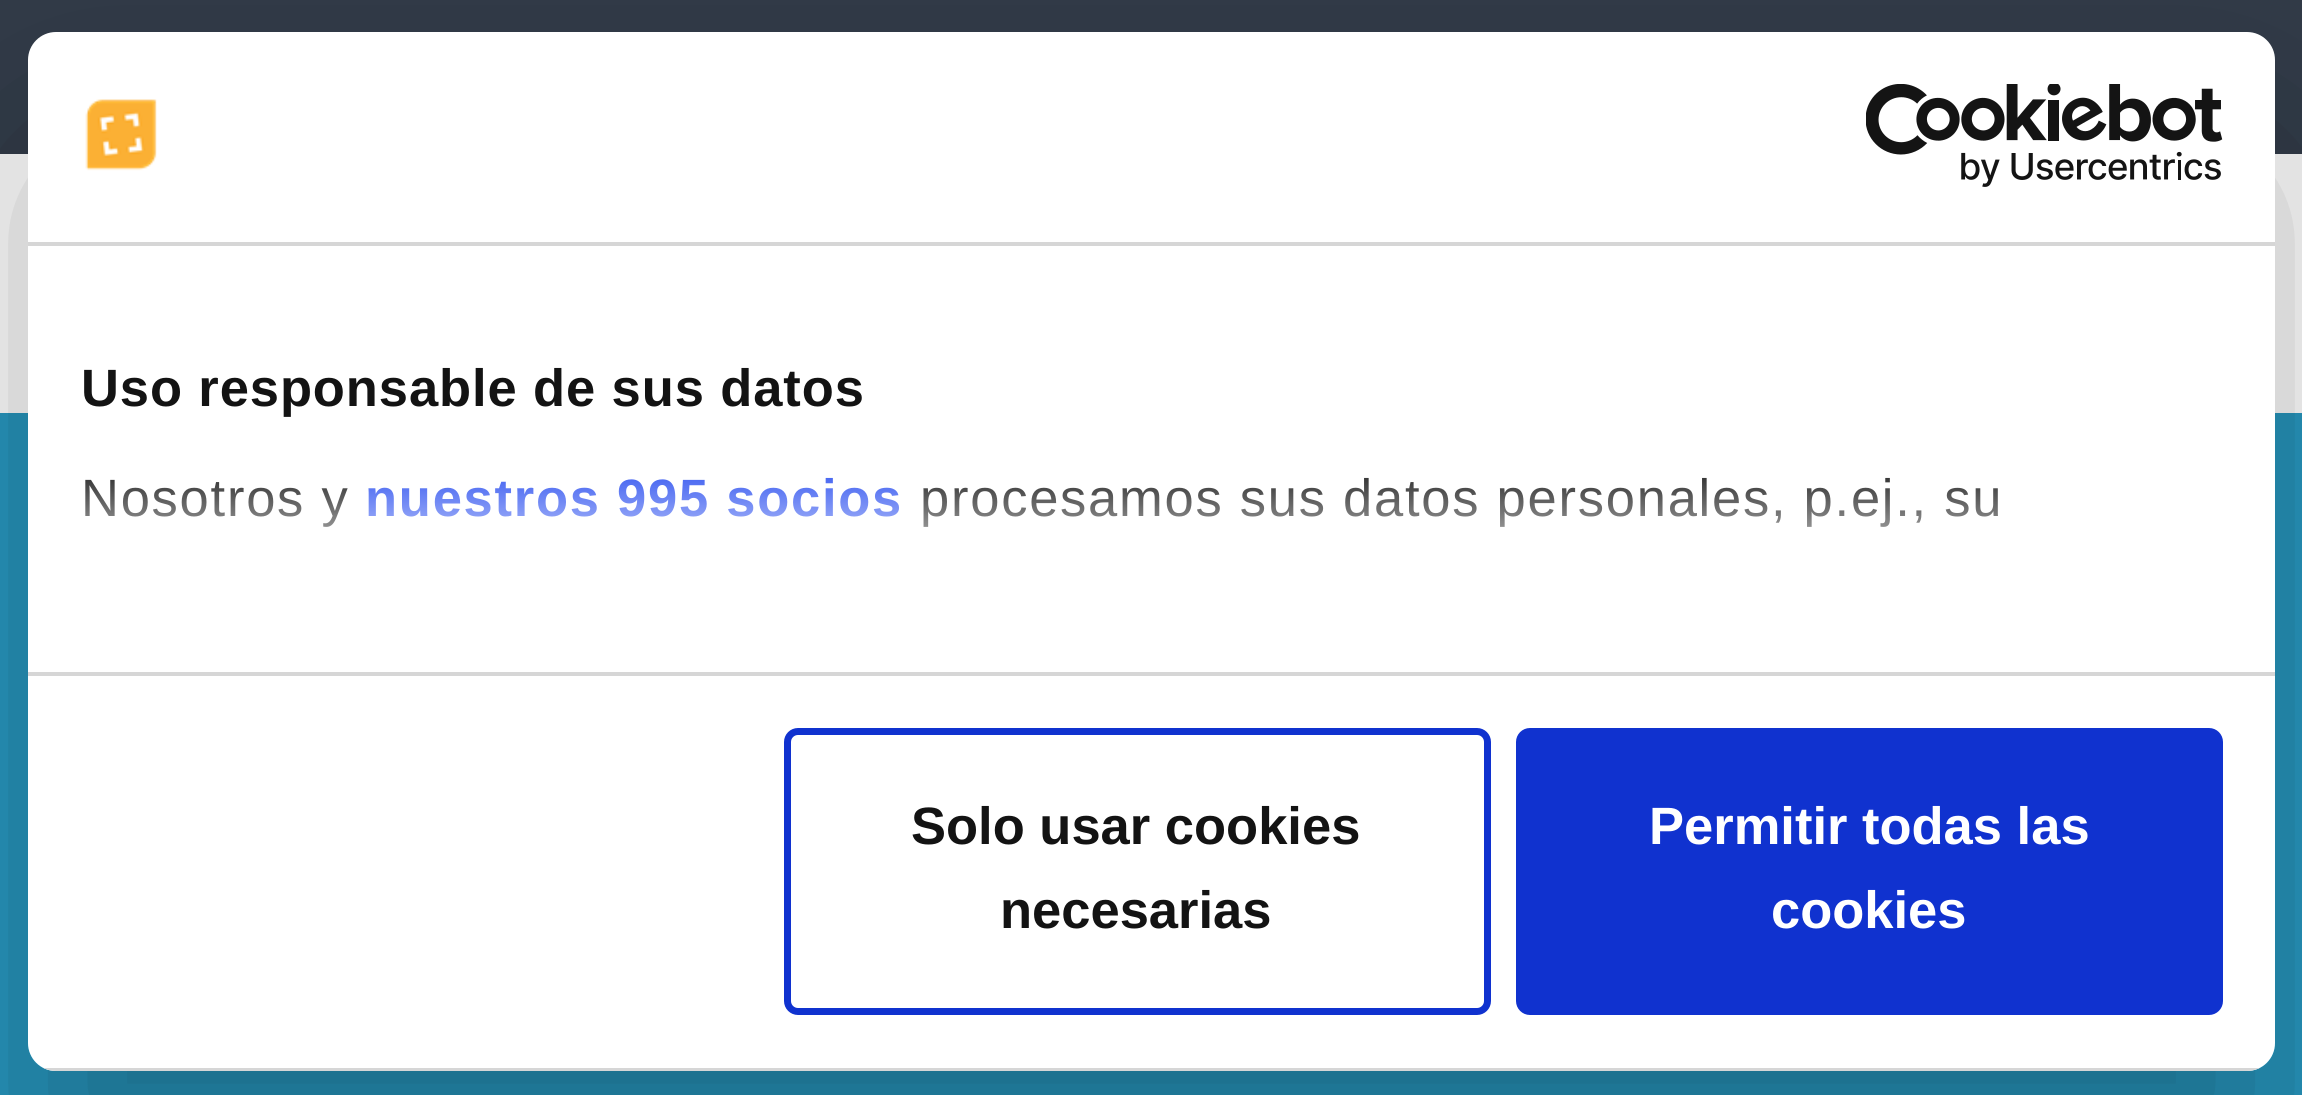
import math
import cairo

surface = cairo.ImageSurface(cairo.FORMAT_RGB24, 2302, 1095)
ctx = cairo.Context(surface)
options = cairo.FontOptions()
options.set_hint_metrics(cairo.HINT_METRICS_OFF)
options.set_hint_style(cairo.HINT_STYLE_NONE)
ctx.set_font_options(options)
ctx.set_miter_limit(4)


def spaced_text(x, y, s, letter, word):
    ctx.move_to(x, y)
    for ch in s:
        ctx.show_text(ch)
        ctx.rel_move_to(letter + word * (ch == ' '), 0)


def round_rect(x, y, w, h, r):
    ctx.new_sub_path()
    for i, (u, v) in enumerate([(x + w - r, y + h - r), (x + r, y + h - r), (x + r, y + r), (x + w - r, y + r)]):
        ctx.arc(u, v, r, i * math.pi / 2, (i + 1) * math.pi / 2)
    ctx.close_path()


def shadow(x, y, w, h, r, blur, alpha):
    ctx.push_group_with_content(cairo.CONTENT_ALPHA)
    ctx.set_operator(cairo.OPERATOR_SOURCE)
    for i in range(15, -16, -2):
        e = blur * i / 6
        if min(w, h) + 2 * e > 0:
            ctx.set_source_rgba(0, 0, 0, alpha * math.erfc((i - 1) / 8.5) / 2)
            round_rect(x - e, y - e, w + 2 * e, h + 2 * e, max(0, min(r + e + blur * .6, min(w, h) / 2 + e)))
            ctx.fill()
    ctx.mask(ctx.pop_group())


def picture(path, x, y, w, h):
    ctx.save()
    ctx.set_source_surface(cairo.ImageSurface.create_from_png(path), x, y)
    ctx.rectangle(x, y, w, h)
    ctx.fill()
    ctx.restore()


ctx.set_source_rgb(1, 1, 1)
ctx.paint()
ctx.set_source_rgb(0.196, 0.235, 0.286)
ctx.rectangle(0, 0, 2302, 154)
ctx.fill()
ctx.set_source_rgb(0.153, 0.596, 0.753)
ctx.rectangle(0, 413, 2302, 682)
ctx.fill()
ctx.save()
ctx.set_fill_rule(cairo.FILL_RULE_EVEN_ODD)
ctx.new_path()
ctx.move_to(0, 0)
ctx.line_to(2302, 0)
ctx.line_to(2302, 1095)
ctx.line_to(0, 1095)
ctx.close_path()
ctx.move_to(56, 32)
ctx.line_to(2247, 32)
ctx.curve_to(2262.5, 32, 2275, 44.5, 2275, 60)
ctx.line_to(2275, 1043)
ctx.curve_to(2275, 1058.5, 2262.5, 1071, 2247, 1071)
ctx.line_to(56, 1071)
ctx.curve_to(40.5, 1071, 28, 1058.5, 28, 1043)
ctx.line_to(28, 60)
ctx.curve_to(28, 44.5, 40.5, 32, 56, 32)
ctx.close_path()
ctx.clip()
ctx.set_source_rgb(0, 0, 0)
shadow(28, 144, 2247, 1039, 28, 119, 0.3)
ctx.restore()
ctx.set_source_rgb(1, 1, 1)
round_rect(28, 32, 2247, 1039, 28)
ctx.fill()
ctx.set_source_rgb(0.839, 0.839, 0.839)
ctx.rectangle(28, 242, 2247, 4)
ctx.fill()
picture("img1.png", 85, 99, 72, 72)
picture("img2.png", 1866, 84, 357, 103)
ctx.rectangle(28, 672, 2247, 4)
ctx.fill()
ctx.select_font_face("Liberation Sans", cairo.FONT_SLANT_NORMAL, cairo.FONT_WEIGHT_BOLD)
ctx.set_font_size(52.5)
ctx.set_source_rgb(0.078, 0.078, 0.078)
spaced_text(81, 406, "Uso responsable de sus datos", 0.9, 0)
ctx.select_font_face("Liberation Sans")
spaced_text(81, 516, "Nosotros y", 1.75, 0)
ctx.select_font_face("Liberation Sans", cairo.FONT_SLANT_NORMAL, cairo.FONT_WEIGHT_BOLD)
ctx.set_source_rgb(0.165, 0.306, 0.937)
spaced_text(365, 516, "nuestros 995 socios", 1.75, 0)
ctx.select_font_face("Liberation Sans")
ctx.set_source_rgb(0.078, 0.078, 0.078)
spaced_text(920, 516, "procesamos sus datos personales, p.ej., su", 1.75, 0)
gradient = cairo.LinearGradient(1129, 670, 1129, 457)
gradient.add_color_stop_rgba(0, 1, 1, 1, 1)
gradient.add_color_stop_rgba(0.5, 1, 1, 1, 0.8)
gradient.add_color_stop_rgba(1, 1, 1, 1, 0)
ctx.set_source(gradient)
ctx.rectangle(84, 478, 1914, 49)
ctx.fill()
ctx.save()
round_rect(28, 32, 2247, 1039, 28)
ctx.clip()
ctx.set_source_rgb(0.839, 0.839, 0.839)
ctx.rectangle(43, 1068, 2217, 3)
ctx.fill()
ctx.restore()
round_rect(787.5, 731.5, 700, 280, 10.5)
ctx.set_source_rgb(0.063, 0.196, 0.812)
ctx.set_line_width(7)
ctx.stroke()
ctx.select_font_face("Liberation Sans", cairo.FONT_SLANT_NORMAL, cairo.FONT_WEIGHT_BOLD)
ctx.set_source_rgb(0.078, 0.078, 0.078)
ctx.move_to(911, 844)
ctx.show_text("Solo usar cookies")
ctx.move_to(1000, 928)
ctx.show_text("necesarias")
ctx.set_source_rgb(0.063, 0.196, 0.812)
round_rect(1519.5, 731.5, 700, 280, 10.5)
ctx.fill_preserve()
ctx.stroke()
ctx.set_source_rgb(1, 1, 1)
ctx.move_to(1649, 844)
ctx.show_text("Permitir todas las")
ctx.move_to(1771, 928)
ctx.show_text("cookies")
surface.write_to_png("page.png")
